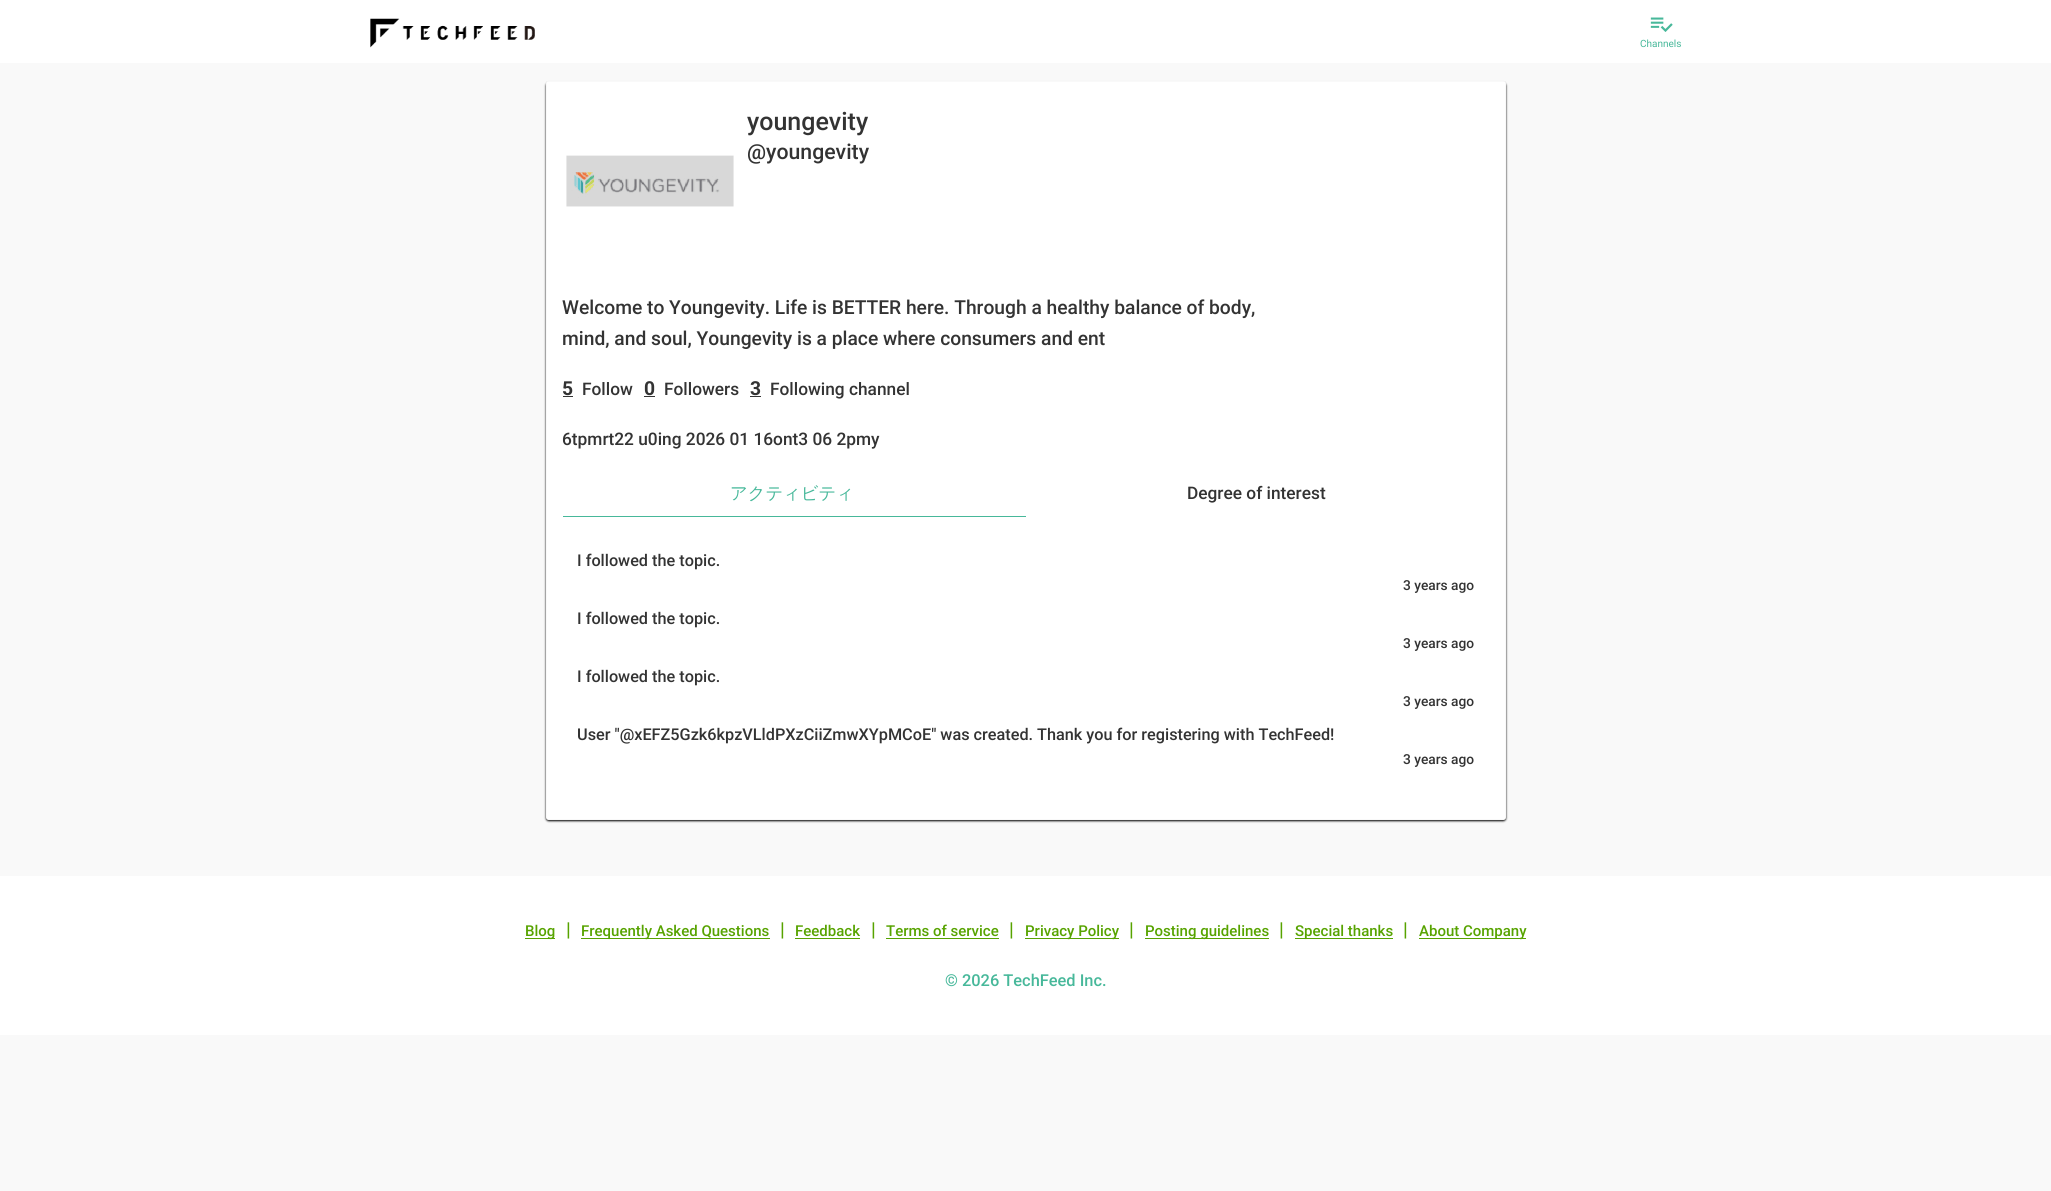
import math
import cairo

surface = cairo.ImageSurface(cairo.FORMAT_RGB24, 2051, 1191)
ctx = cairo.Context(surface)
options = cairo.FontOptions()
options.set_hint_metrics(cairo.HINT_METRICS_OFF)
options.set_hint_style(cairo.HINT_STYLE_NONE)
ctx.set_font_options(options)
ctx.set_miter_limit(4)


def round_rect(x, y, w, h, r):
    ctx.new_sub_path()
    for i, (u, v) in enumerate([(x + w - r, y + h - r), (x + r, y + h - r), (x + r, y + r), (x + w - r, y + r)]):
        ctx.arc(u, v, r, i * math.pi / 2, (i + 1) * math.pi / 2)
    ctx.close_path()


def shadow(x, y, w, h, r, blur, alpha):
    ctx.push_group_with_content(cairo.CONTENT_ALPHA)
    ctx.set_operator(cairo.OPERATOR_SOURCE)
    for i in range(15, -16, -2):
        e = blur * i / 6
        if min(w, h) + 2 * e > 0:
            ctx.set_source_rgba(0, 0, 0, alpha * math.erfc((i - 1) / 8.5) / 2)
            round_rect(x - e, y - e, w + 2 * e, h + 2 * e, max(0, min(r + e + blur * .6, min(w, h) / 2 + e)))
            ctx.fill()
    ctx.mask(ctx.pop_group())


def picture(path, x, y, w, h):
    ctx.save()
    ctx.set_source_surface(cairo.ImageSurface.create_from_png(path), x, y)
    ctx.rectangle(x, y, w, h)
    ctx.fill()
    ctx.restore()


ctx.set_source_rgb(0.973, 0.973, 0.973)
ctx.paint()
ctx.set_source_rgb(1, 1, 1)
ctx.rectangle(0, 0, 2051, 63)
ctx.fill()
picture("img1.png", 370, 18, 165, 30)
picture("img2.png", 1650, 17, 23, 15)
ctx.select_font_face("Roboto")
ctx.set_font_size(10)
ctx.set_source_rgb(0.278, 0.722, 0.604)
ctx.move_to(1640, 47)
ctx.show_text("Channels")
ctx.set_source_rgb(0, 0, 0)
shadow(546, 83, 960, 738, 2.5, 1, 1)
ctx.set_source_rgb(1, 1, 1)
round_rect(546, 81, 960, 739, 2.5)
ctx.fill()
ctx.rectangle(546.5, 81.5, 959, 738)
ctx.set_source_rgba(0.392, 0.392, 0.392, 0.04)
ctx.set_line_width(1)
ctx.stroke()
ctx.select_font_face("Roboto Medium")
ctx.set_font_size(25)
ctx.set_source_rgb(0.2, 0.2, 0.2)
ctx.move_to(747, 130)
ctx.show_text("youngevity")
ctx.set_font_size(21.25)
ctx.move_to(747, 159)
ctx.show_text("@youngevity")
picture("img3.png", 566, 155, 168, 52)
ctx.set_font_size(19.25)
ctx.move_to(562, 314)
ctx.show_text("Welcome to Youngevity. Life is BETTER here. Through a healthy balance of body,")
ctx.move_to(562, 345)
ctx.show_text("mind, and soul, Youngevity is a place where consumers and ent")
ctx.select_font_face("Roboto", cairo.FONT_SLANT_NORMAL, cairo.FONT_WEIGHT_BOLD)
ctx.move_to(562, 395)
ctx.show_text("5")
ctx.rectangle(563, 396, 10, 1)
ctx.fill()
ctx.select_font_face("Roboto Medium")
ctx.set_font_size(17.3)
ctx.move_to(582, 395)
ctx.show_text("Follow")
ctx.select_font_face("Roboto", cairo.FONT_SLANT_NORMAL, cairo.FONT_WEIGHT_BOLD)
ctx.set_font_size(19.25)
ctx.move_to(644, 395)
ctx.show_text("0")
ctx.rectangle(644, 396, 11, 1)
ctx.fill()
ctx.select_font_face("Roboto Medium")
ctx.set_font_size(17.3)
ctx.move_to(664, 395)
ctx.show_text("Followers")
ctx.select_font_face("Roboto", cairo.FONT_SLANT_NORMAL, cairo.FONT_WEIGHT_BOLD)
ctx.set_font_size(19.25)
ctx.move_to(750, 395)
ctx.show_text("3")
ctx.rectangle(750, 396, 11, 1)
ctx.fill()
ctx.select_font_face("Roboto Medium")
ctx.set_font_size(17.3)
ctx.move_to(770, 395)
ctx.show_text("Following channel")
ctx.move_to(562, 445)
ctx.show_text("6tpmrt22 u0ing 2026 01 16ont3 06 2pmy")
ctx.set_source_rgb(0.278, 0.722, 0.604)
ctx.rectangle(563, 516, 463, 1)
ctx.fill()
ctx.select_font_face("WenQuanYi Zen Hei Medium")
ctx.move_to(730, 499)
ctx.show_text("アクティビティ")
ctx.select_font_face("Roboto Medium")
ctx.set_source_rgb(0.2, 0.2, 0.2)
ctx.move_to(1187, 499)
ctx.show_text("Degree of interest")
ctx.set_font_size(16.25)
ctx.move_to(577, 566)
ctx.show_text("I followed the topic.")
ctx.set_font_size(13.75)
ctx.move_to(1403, 590)
ctx.show_text("3 years ago")
ctx.set_font_size(16.25)
ctx.move_to(577, 624)
ctx.show_text("I followed the topic.")
ctx.set_font_size(13.75)
ctx.move_to(1403, 648)
ctx.show_text("3 years ago")
ctx.set_font_size(16.25)
ctx.move_to(577, 682)
ctx.show_text("I followed the topic.")
ctx.set_font_size(13.75)
ctx.move_to(1403, 706)
ctx.show_text("3 years ago")
ctx.set_font_size(16.25)
ctx.move_to(577, 740)
ctx.show_text("User \"@xEFZ5Gzk6kpzVLldPXzCiiZmwXYpMCoE\" was created. Thank you for registering with TechFeed!")
ctx.set_font_size(13.75)
ctx.move_to(1403, 764)
ctx.show_text("3 years ago")
ctx.set_source_rgb(1, 1, 1)
ctx.rectangle(0, 876, 2051, 159)
ctx.fill()
ctx.set_source_rgb(0.341, 0.639, 0)
ctx.rectangle(525, 938, 30, 1)
ctx.fill()
ctx.set_font_size(15)
ctx.move_to(525, 936)
ctx.show_text("Blog")
ctx.set_font_size(19.25)
ctx.move_to(566, 936)
ctx.show_text("|")
ctx.rectangle(581, 938, 189, 1)
ctx.fill()
ctx.set_font_size(15)
ctx.move_to(581, 936)
ctx.show_text("Frequently Asked Questions")
ctx.set_font_size(19.25)
ctx.move_to(780, 936)
ctx.show_text("|")
ctx.set_font_size(15)
ctx.move_to(795, 936)
ctx.show_text("Feedback")
ctx.rectangle(795, 938, 65, 1)
ctx.fill()
ctx.set_font_size(19.25)
ctx.move_to(871, 936)
ctx.show_text("|")
ctx.set_font_size(15)
ctx.move_to(886, 936)
ctx.show_text("Terms of service")
ctx.rectangle(886, 938, 113, 1)
ctx.fill()
ctx.set_font_size(19.25)
ctx.move_to(1009, 936)
ctx.show_text("|")
ctx.rectangle(1025, 938, 94, 1)
ctx.fill()
ctx.set_font_size(15)
ctx.move_to(1025, 936)
ctx.show_text("Privacy Policy")
ctx.set_font_size(19.25)
ctx.move_to(1129, 936)
ctx.show_text("|")
ctx.rectangle(1145, 938, 124, 1)
ctx.fill()
ctx.set_font_size(15)
ctx.move_to(1145, 936)
ctx.show_text("Posting guidelines")
ctx.set_font_size(19.25)
ctx.move_to(1279, 936)
ctx.show_text("|")
ctx.rectangle(1295, 938, 98, 1)
ctx.fill()
ctx.set_font_size(15)
ctx.move_to(1295, 936)
ctx.show_text("Special thanks")
ctx.set_font_size(19.25)
ctx.move_to(1403, 936)
ctx.show_text("|")
ctx.rectangle(1419, 938, 107, 1)
ctx.fill()
ctx.set_font_size(15)
ctx.move_to(1419, 936)
ctx.show_text("About Company")
ctx.set_font_size(16.4)
ctx.set_source_rgb(0.278, 0.722, 0.604)
ctx.move_to(945, 986)
ctx.show_text("© 2026 TechFeed Inc.")
surface.write_to_png("page.png")
